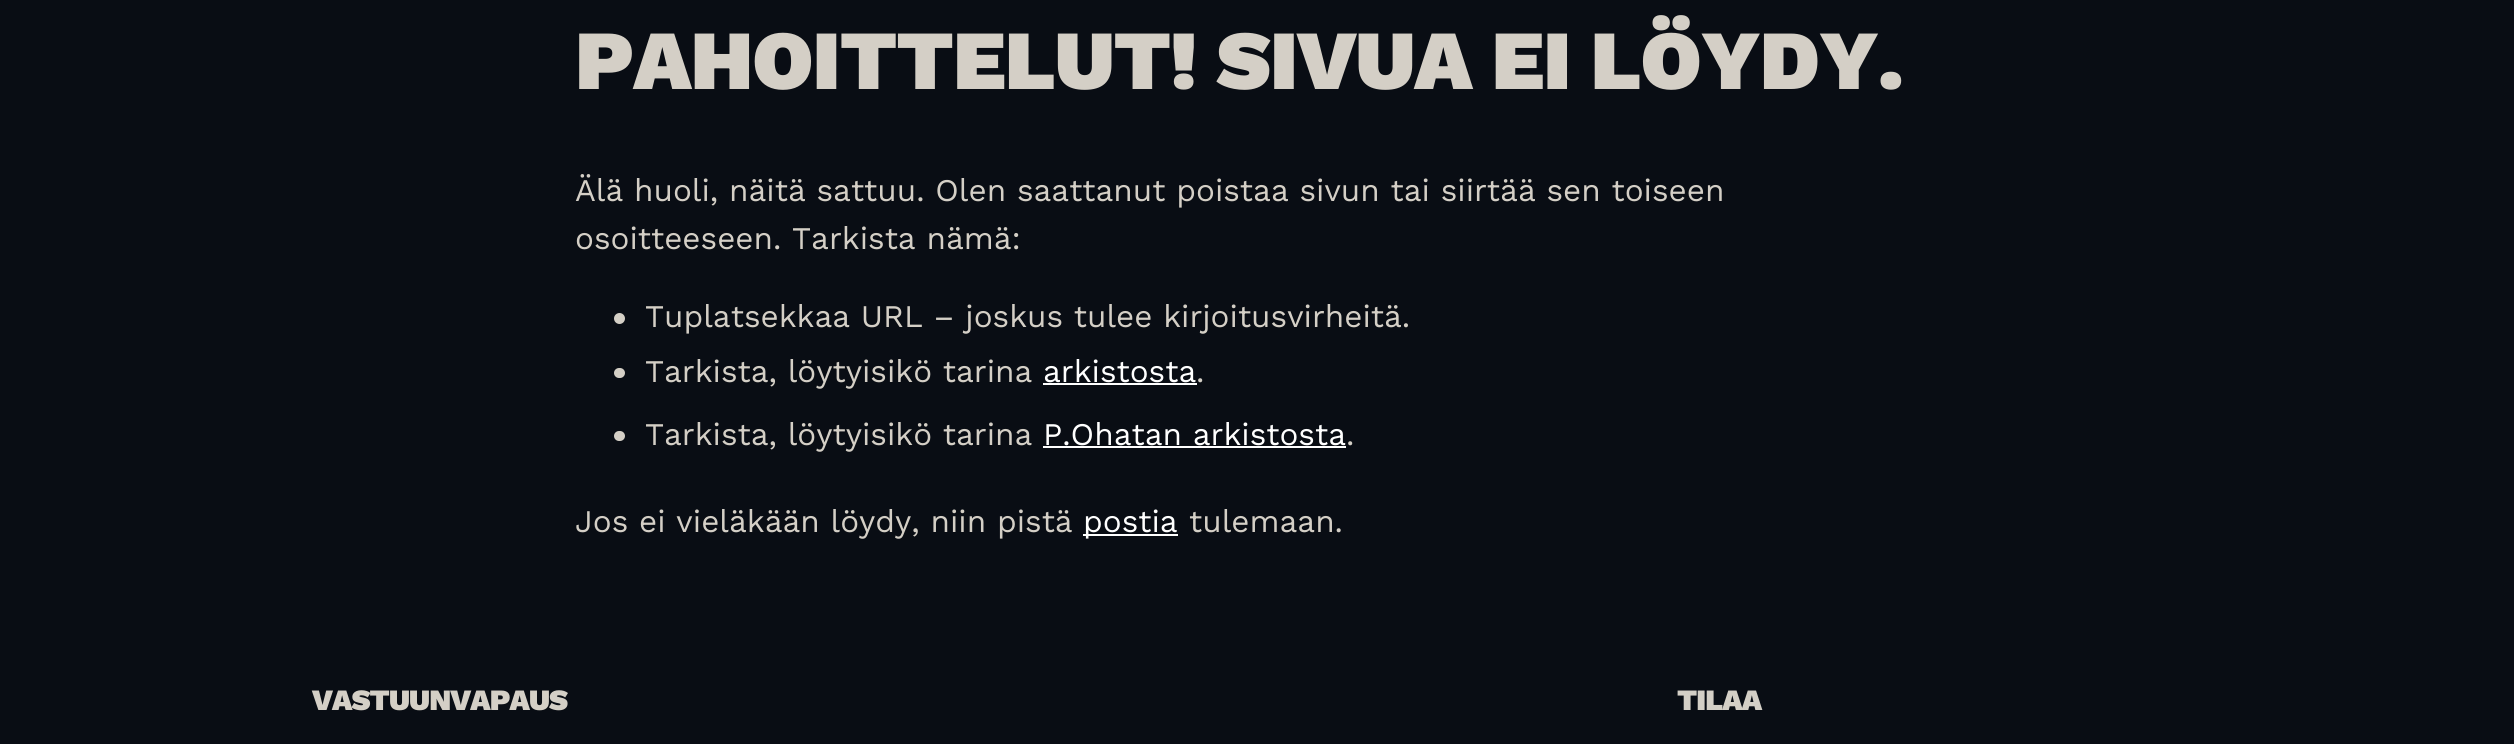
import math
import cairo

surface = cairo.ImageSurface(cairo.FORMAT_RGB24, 2514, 744)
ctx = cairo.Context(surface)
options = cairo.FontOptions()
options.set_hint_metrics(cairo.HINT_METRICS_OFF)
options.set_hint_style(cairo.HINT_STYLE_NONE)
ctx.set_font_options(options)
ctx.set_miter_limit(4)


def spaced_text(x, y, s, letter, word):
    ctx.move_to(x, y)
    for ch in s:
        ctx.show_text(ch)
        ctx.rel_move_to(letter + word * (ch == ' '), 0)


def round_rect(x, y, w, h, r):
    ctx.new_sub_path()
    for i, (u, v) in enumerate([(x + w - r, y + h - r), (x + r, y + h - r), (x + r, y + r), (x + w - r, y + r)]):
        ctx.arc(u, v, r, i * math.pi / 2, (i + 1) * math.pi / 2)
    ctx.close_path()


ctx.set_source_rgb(0.039, 0.051, 0.082)
ctx.paint()
ctx.select_font_face("Work Sans Black")
ctx.set_font_size(84)
ctx.set_source_rgb(0.831, 0.812, 0.776)
spaced_text(575, 89, "PAHOITTELUT! SIVUA EI LÖYDY.", -0.9, 0)
ctx.select_font_face("Work Sans")
ctx.set_font_size(31.5)
ctx.move_to(575, 201)
ctx.show_text("Älä huoli, näitä sattuu. Olen saattanut poistaa sivun tai siirtää sen toiseen")
ctx.move_to(575, 249)
ctx.show_text("osoitteeseen. Tarkista nämä:")
ctx.new_path()
ctx.arc(619.5, 318.5, 5.5, 0, 2 * math.pi)
ctx.fill()
ctx.move_to(645, 327)
ctx.show_text("Tuplatsekkaa URL – joskus tulee kirjoitusvirheitä.")
round_rect(614, 368, 11, 10, 5)
ctx.fill()
ctx.move_to(645, 382)
ctx.show_text("Tarkista, löytyisikö tarina")
ctx.set_source_rgb(1, 1, 1)
ctx.move_to(1043, 382)
ctx.show_text("arkistosta")
ctx.rectangle(1043, 383, 154, 2)
ctx.fill()
ctx.set_source_rgb(0.831, 0.812, 0.776)
ctx.move_to(1196, 382)
ctx.show_text(".")
round_rect(614, 431, 11, 10, 5)
ctx.fill()
ctx.move_to(645, 445)
ctx.show_text("Tarkista, löytyisikö tarina")
ctx.set_source_rgb(1, 1, 1)
ctx.move_to(1043, 445)
ctx.show_text("P.Ohatan arkistosta")
ctx.rectangle(1043, 446, 303, 2)
ctx.fill()
ctx.set_source_rgb(0.831, 0.812, 0.776)
ctx.move_to(1346, 445)
ctx.show_text(".")
ctx.move_to(575, 532)
ctx.show_text("Jos ei vieläkään löydy, niin pistä")
ctx.set_source_rgb(1, 1, 1)
ctx.rectangle(1083, 534, 95, 2)
ctx.fill()
ctx.move_to(1083, 532)
ctx.show_text("postia")
ctx.set_source_rgb(0.831, 0.812, 0.776)
ctx.move_to(1189, 532)
ctx.show_text("tulemaan.")
ctx.select_font_face("Work Sans Black")
ctx.set_font_size(29.5)
spaced_text(312, 710, "VASTUUNVAPAUS", -0.9, 0)
spaced_text(1677, 710, "TILAA", -0.9, 0)
surface.write_to_png("page.png")
